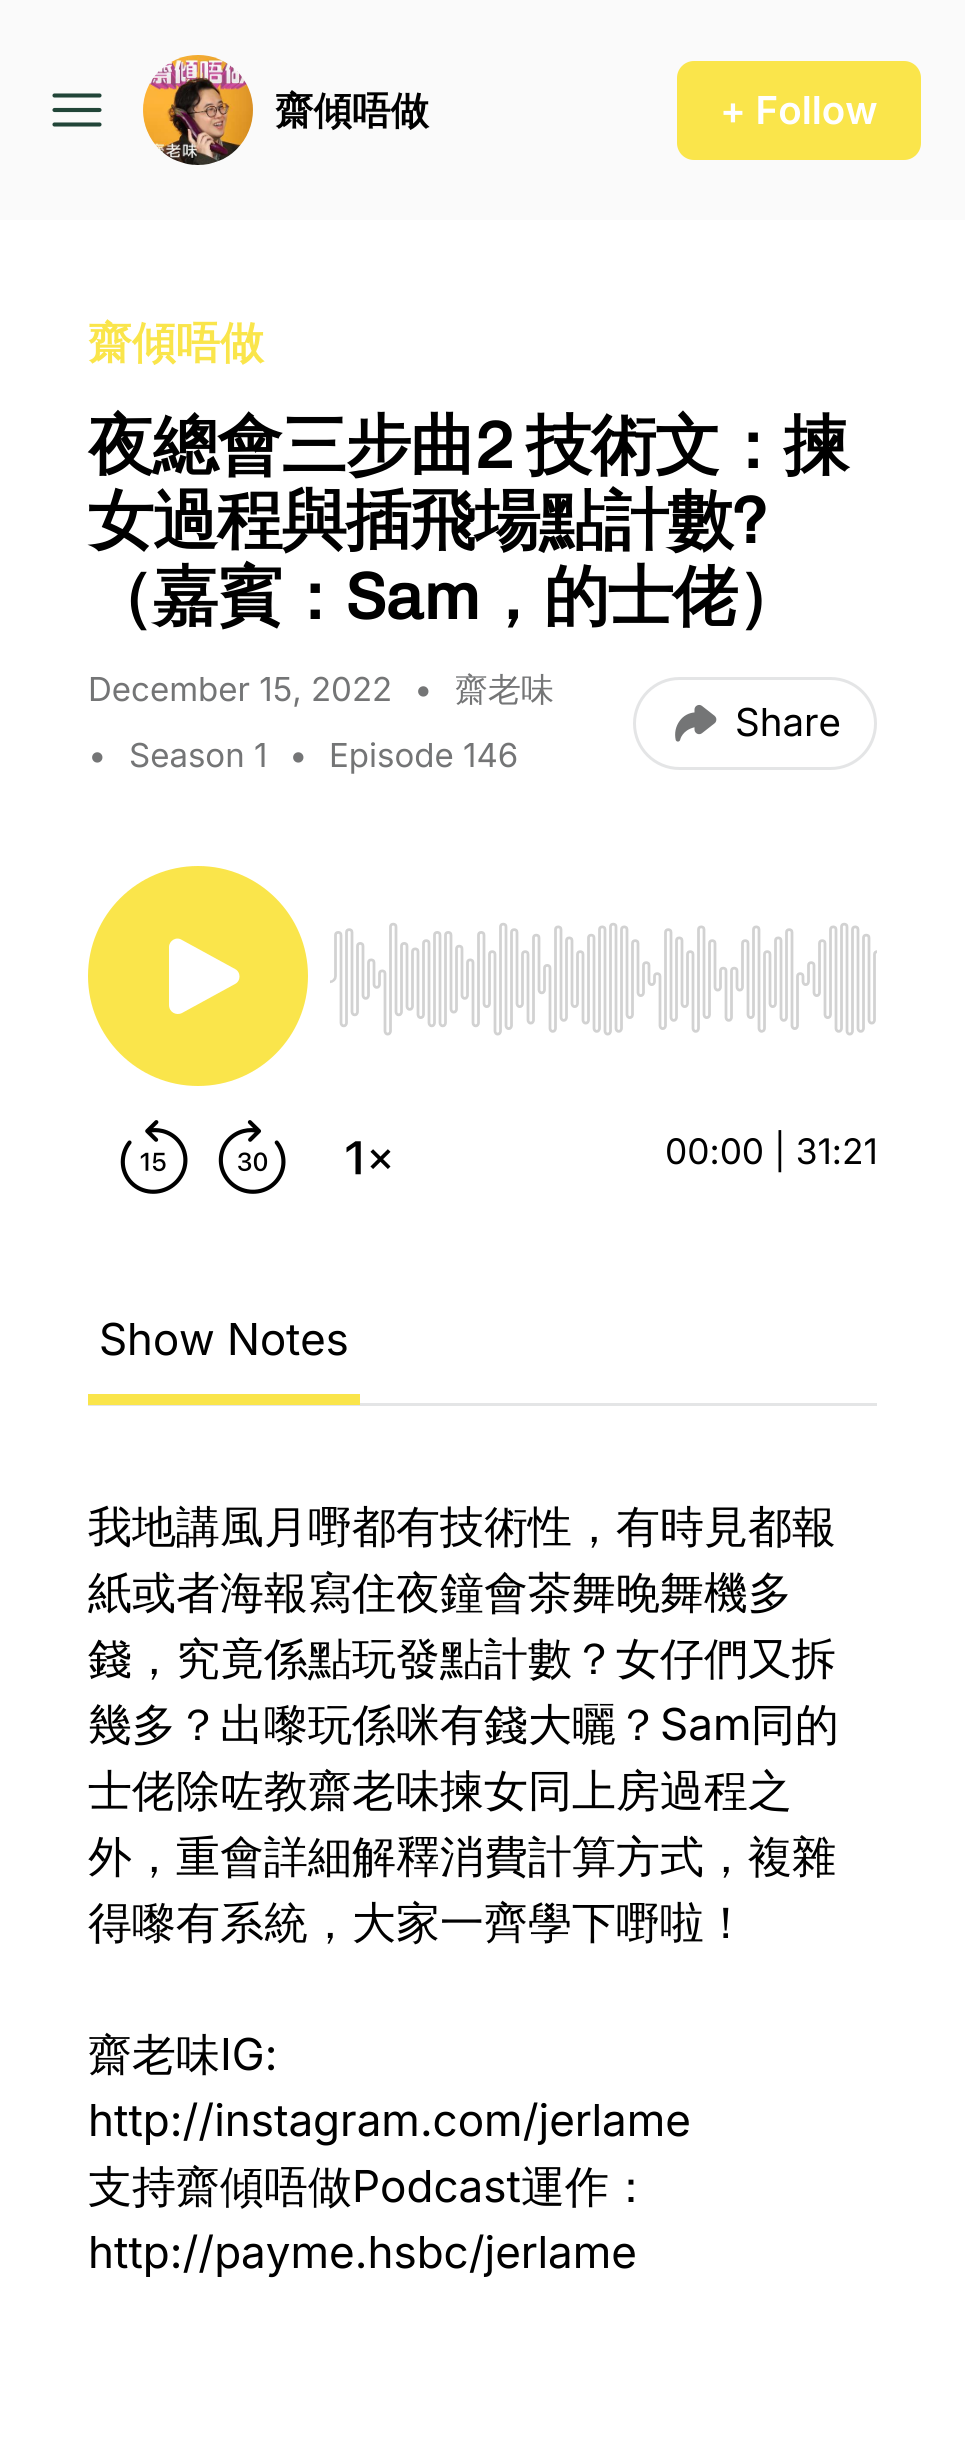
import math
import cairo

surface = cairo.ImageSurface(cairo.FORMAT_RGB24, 965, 2450)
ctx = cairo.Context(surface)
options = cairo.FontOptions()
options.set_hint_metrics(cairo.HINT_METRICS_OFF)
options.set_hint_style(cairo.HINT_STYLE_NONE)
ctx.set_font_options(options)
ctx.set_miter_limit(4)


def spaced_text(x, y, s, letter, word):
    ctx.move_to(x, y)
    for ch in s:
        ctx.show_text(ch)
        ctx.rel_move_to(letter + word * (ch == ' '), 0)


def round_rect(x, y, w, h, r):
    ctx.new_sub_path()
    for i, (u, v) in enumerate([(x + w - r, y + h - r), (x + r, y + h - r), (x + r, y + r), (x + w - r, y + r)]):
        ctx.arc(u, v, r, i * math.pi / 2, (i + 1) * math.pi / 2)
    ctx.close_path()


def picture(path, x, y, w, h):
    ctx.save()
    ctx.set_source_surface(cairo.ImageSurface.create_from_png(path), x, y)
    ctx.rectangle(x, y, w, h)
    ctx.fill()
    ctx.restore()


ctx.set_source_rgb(1, 1, 1)
ctx.paint()
ctx.set_source_rgb(0.98, 0.98, 0.98)
ctx.rectangle(0, 0, 965, 220)
ctx.fill()
ctx.new_path()
ctx.move_to(54.5, 95.5)
ctx.line_to(99.5, 95.5)
ctx.move_to(54.5, 110)
ctx.line_to(99.5, 110)
ctx.move_to(54.5, 124.5)
ctx.line_to(99.5, 124.5)
ctx.set_source_rgb(0.129, 0.271, 0.22)
ctx.set_line_width(4.1)
ctx.set_line_cap(cairo.LINE_CAP_ROUND)
ctx.set_line_join(cairo.LINE_JOIN_ROUND)
ctx.stroke()
picture("img1.png", 143, 55, 110, 110)
ctx.select_font_face("WenQuanYi Zen Hei", cairo.FONT_SLANT_NORMAL, cairo.FONT_WEIGHT_BOLD)
ctx.set_font_size(38.5)
ctx.set_source_rgb(0, 0, 0)
ctx.move_to(275, 124)
ctx.show_text("齋傾唔做")
ctx.set_source_rgb(0.98, 0.898, 0.294)
round_rect(677, 61, 244, 99, 17)
ctx.fill()
ctx.select_font_face("Inter SemiBold")
ctx.set_source_rgb(1, 1, 1)
ctx.move_to(720, 124)
ctx.show_text("+ Follow")
ctx.select_font_face("WenQuanYi Zen Hei", cairo.FONT_SLANT_NORMAL, cairo.FONT_WEIGHT_BOLD)
ctx.set_font_size(44)
ctx.set_source_rgb(0.98, 0.898, 0.294)
ctx.move_to(88, 358)
ctx.show_text("齋傾唔做")
ctx.set_font_size(66)
ctx.set_source_rgb(0, 0, 0)
spaced_text(88, 468, "夜總會三步曲", -1.6, 0)
ctx.select_font_face("Chivo", cairo.FONT_SLANT_NORMAL, cairo.FONT_WEIGHT_BOLD)
spaced_text(474, 468, "2", -1.6, 0)
ctx.select_font_face("WenQuanYi Zen Hei", cairo.FONT_SLANT_NORMAL, cairo.FONT_WEIGHT_BOLD)
spaced_text(526, 468, "技術文：揀", -1.6, 0)
spaced_text(88, 543, "女過程與插飛場點計數", -1.6, 0)
ctx.select_font_face("Chivo", cairo.FONT_SLANT_NORMAL, cairo.FONT_WEIGHT_BOLD)
spaced_text(732, 543, "?", -1.6, 0)
ctx.select_font_face("WenQuanYi Zen Hei", cairo.FONT_SLANT_NORMAL, cairo.FONT_WEIGHT_BOLD)
spaced_text(88, 619, "（嘉賓：", -1.6, 0)
ctx.select_font_face("Chivo", cairo.FONT_SLANT_NORMAL, cairo.FONT_WEIGHT_BOLD)
spaced_text(345, 619, "Sam", -1.6, 0)
ctx.select_font_face("WenQuanYi Zen Hei", cairo.FONT_SLANT_NORMAL, cairo.FONT_WEIGHT_BOLD)
spaced_text(479, 619, "，的士佬）", -1.6, 0)
ctx.select_font_face("Inter")
ctx.set_font_size(33)
ctx.set_source_rgb(0.455, 0.459, 0.463)
ctx.move_to(88, 701)
ctx.show_text("December 15, 2022")
ctx.move_to(414, 701)
ctx.show_text("•")
ctx.select_font_face("WenQuanYi Zen Hei Medium")
ctx.move_to(455, 701)
ctx.show_text("齋老味")
ctx.select_font_face("Inter")
ctx.move_to(88, 767)
ctx.show_text("•")
ctx.move_to(129, 767)
ctx.show_text("Season 1")
ctx.move_to(289, 767)
ctx.show_text("•")
ctx.move_to(329, 767)
ctx.show_text("Episode 146")
round_rect(634.5, 678.5, 241, 90, 45)
ctx.set_source_rgb(0.894, 0.898, 0.902)
ctx.set_line_width(3)
ctx.set_line_cap(cairo.LINE_CAP_BUTT)
ctx.set_line_join(cairo.LINE_JOIN_MITER)
ctx.stroke()
picture("img2.png", 675, 704, 42, 38)
ctx.set_font_size(38.5)
ctx.set_source_rgb(0, 0, 0)
ctx.move_to(735, 736)
ctx.show_text("Share")
picture("img3.png", 120, 1120, 68, 74)
picture("img4.png", 218, 1120, 68, 74)
picture("img5.png", 346, 1141, 45, 34)
ctx.set_source_rgb(0.98, 0.898, 0.294)
ctx.arc(198, 976, 110, 0, 2 * math.pi)
ctx.fill()
ctx.set_source_rgb(1, 1, 1)
ctx.set_fill_rule(cairo.FILL_RULE_EVEN_ODD)
ctx.new_path()
ctx.move_to(169, 947)
ctx.curve_to(169, 941, 176, 936, 182, 940)
ctx.line_to(235, 969)
ctx.curve_to(241, 972, 241, 981, 235, 984)
ctx.line_to(182, 1013)
ctx.curve_to(176, 1016, 169, 1012, 169, 1005)
ctx.close_path()
ctx.fill()
picture("img6.png", 330, 922, 547, 114)
ctx.set_font_size(35.25)
ctx.set_source_rgb(0, 0, 0)
ctx.move_to(665, 1164)
ctx.show_text("00:00 | 31:21")
ctx.set_source_rgb(0.894, 0.898, 0.902)
ctx.rectangle(88, 1403, 789, 3)
ctx.fill()
ctx.set_source_rgb(0.98, 0.898, 0.294)
ctx.rectangle(88, 1394, 272, 11)
ctx.fill()
ctx.select_font_face("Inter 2")
ctx.set_font_size(44)
ctx.set_source_rgb(0, 0, 0)
ctx.move_to(99, 1355)
ctx.show_text("Show Notes")
ctx.select_font_face("WenQuanYi Zen Hei Medium")
ctx.move_to(88, 1542)
ctx.show_text("我地講風月嘢都有技術性，有時見都報")
ctx.move_to(88, 1608)
ctx.show_text("紙或者海報寫住夜鐘會茶舞晚舞機多")
ctx.move_to(88, 1674)
ctx.show_text("錢，究竟係點玩發點計數？女仔們又拆")
ctx.move_to(88, 1740)
ctx.show_text("幾多？出嚟玩係咪有錢大曬？")
ctx.select_font_face("Inter")
ctx.move_to(660, 1740)
ctx.show_text("Sam")
ctx.select_font_face("WenQuanYi Zen Hei Medium")
ctx.move_to(751, 1740)
ctx.show_text("同的")
ctx.move_to(88, 1806)
ctx.show_text("士佬除咗教齋老味揀女同上房過程之")
ctx.move_to(88, 1872)
ctx.show_text("外，重會詳細解釋消費計算方式，複雜")
ctx.move_to(88, 1938)
ctx.show_text("得嚟有系統，大家一齊學下嘢啦！")
ctx.move_to(88, 2070)
ctx.show_text("齋老味")
ctx.select_font_face("Inter")
ctx.move_to(220, 2070)
ctx.show_text("IG:")
ctx.move_to(88, 2136)
ctx.show_text("http://instagram.com/jerlame")
ctx.select_font_face("WenQuanYi Zen Hei Medium")
ctx.move_to(88, 2202)
ctx.show_text("支持齋傾唔做")
ctx.select_font_face("Inter")
ctx.move_to(352, 2202)
ctx.show_text("Podcast")
ctx.select_font_face("WenQuanYi Zen Hei Medium")
ctx.move_to(521, 2202)
ctx.show_text("運作：")
ctx.select_font_face("Inter")
ctx.move_to(88, 2268)
ctx.show_text("http://payme.hsbc/jerlame")
surface.write_to_png("page.png")
